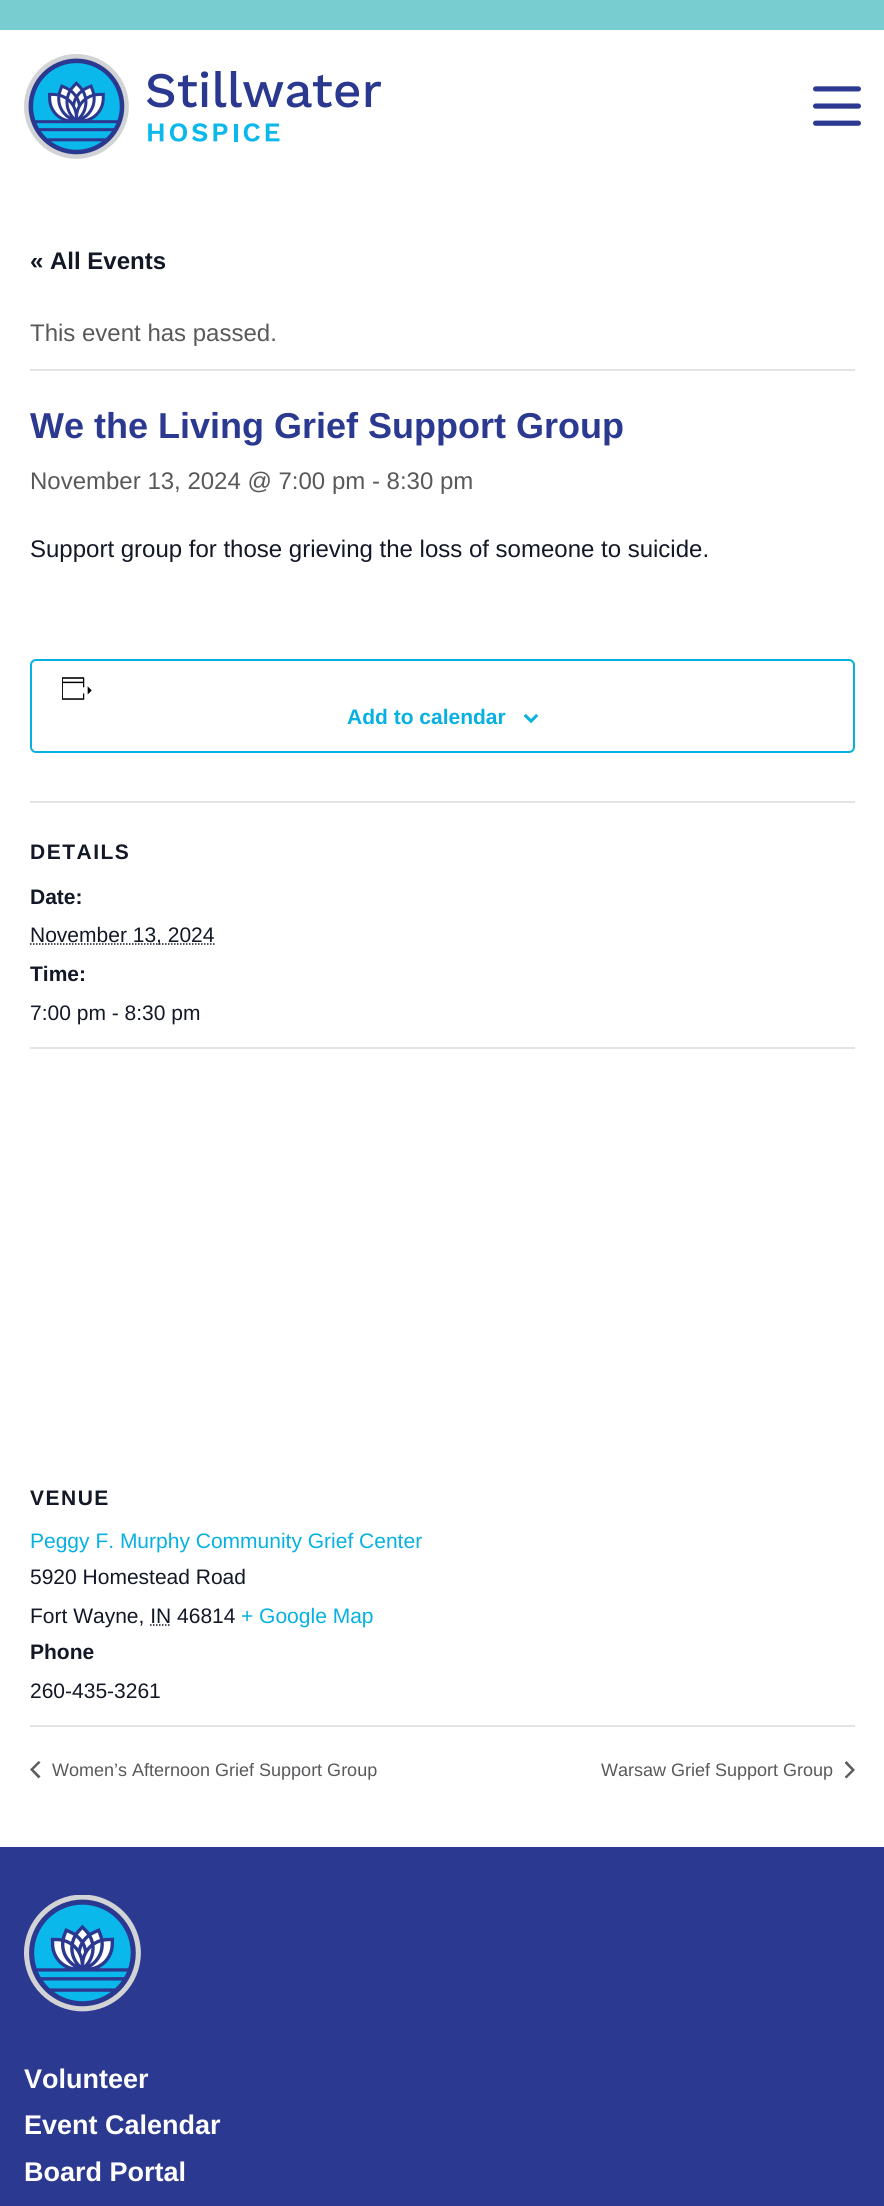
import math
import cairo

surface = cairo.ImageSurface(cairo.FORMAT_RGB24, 884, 2206)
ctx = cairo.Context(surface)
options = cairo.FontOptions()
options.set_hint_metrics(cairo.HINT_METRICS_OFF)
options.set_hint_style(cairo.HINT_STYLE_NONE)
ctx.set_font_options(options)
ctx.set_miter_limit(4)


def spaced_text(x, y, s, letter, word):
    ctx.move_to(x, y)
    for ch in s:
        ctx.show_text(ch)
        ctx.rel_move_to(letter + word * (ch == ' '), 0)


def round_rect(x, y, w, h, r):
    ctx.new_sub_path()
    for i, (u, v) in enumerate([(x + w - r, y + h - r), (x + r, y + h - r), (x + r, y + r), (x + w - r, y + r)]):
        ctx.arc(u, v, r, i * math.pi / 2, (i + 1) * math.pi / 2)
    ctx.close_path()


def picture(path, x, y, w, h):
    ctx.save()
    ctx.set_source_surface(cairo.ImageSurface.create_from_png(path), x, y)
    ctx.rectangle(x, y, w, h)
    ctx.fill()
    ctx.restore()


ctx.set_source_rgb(1, 1, 1)
ctx.paint()
ctx.set_source_rgb(0.471, 0.804, 0.82)
ctx.rectangle(0, 0, 884, 30)
ctx.fill()
picture("img1.png", 24, 54, 357, 105)
picture("img2.png", 813, 86, 48, 40)
ctx.select_font_face("Liberation Sans", cairo.FONT_SLANT_NORMAL, cairo.FONT_WEIGHT_BOLD)
ctx.set_font_size(24)
ctx.set_source_rgb(0.078, 0.094, 0.153)
ctx.move_to(30, 269)
ctx.show_text("« All Events")
ctx.set_source_rgb(0.894, 0.894, 0.894)
ctx.rectangle(30, 369, 825, 2)
ctx.fill()
ctx.select_font_face("Liberation Sans")
ctx.set_source_rgb(0.345, 0.349, 0.357)
ctx.move_to(30, 341)
ctx.show_text("This event has passed.")
ctx.select_font_face("Liberation Sans", cairo.FONT_SLANT_NORMAL, cairo.FONT_WEIGHT_BOLD)
ctx.set_font_size(36)
ctx.set_source_rgb(0.169, 0.224, 0.565)
ctx.move_to(30, 438)
ctx.show_text("We the Living Grief Support Group")
ctx.select_font_face("Liberation Sans")
ctx.set_font_size(24)
ctx.set_source_rgb(0.345, 0.349, 0.357)
ctx.move_to(30, 489)
ctx.show_text("November 13, 2024 @ 7:00 pm - 8:30 pm")
ctx.set_source_rgb(0.078, 0.094, 0.153)
ctx.move_to(30, 557)
ctx.show_text("Support group for those grieving the loss of someone to suicide.")
round_rect(31, 660, 823, 92, 5)
ctx.set_source_rgb(0.024, 0.694, 0.886)
ctx.stroke()
picture("img3.png", 62, 677, 30, 23)
ctx.select_font_face("Liberation Sans", cairo.FONT_SLANT_NORMAL, cairo.FONT_WEIGHT_BOLD)
ctx.set_font_size(21)
ctx.move_to(347, 724)
ctx.show_text("Add to calendar")
picture("img4.png", 524, 714, 15, 9)
ctx.set_source_rgb(0.894, 0.894, 0.894)
ctx.rectangle(30, 801, 825, 2)
ctx.fill()
ctx.set_source_rgb(0.078, 0.094, 0.153)
spaced_text(30, 859, "DETAILS", 1.5, 0)
ctx.move_to(30, 904)
ctx.show_text("Date:")
ctx.new_path()
ctx.move_to(30, 944)
ctx.line_to(214.5, 944)
ctx.set_line_width(1.5)
ctx.set_dash([1.5, 1.5])
ctx.stroke()
ctx.select_font_face("Liberation Sans")
ctx.move_to(30, 942)
ctx.show_text("November 13, 2024")
ctx.select_font_face("Liberation Sans", cairo.FONT_SLANT_NORMAL, cairo.FONT_WEIGHT_BOLD)
ctx.move_to(30, 981)
ctx.show_text("Time:")
ctx.select_font_face("Liberation Sans")
ctx.move_to(30, 1020)
ctx.show_text("7:00 pm - 8:30 pm")
ctx.set_source_rgb(0.894, 0.894, 0.894)
ctx.rectangle(30, 1047, 825, 2)
ctx.fill()
ctx.select_font_face("Liberation Sans", cairo.FONT_SLANT_NORMAL, cairo.FONT_WEIGHT_BOLD)
ctx.set_source_rgb(0.078, 0.094, 0.153)
spaced_text(30, 1505, "VENUE", 1.5, 0)
ctx.select_font_face("Liberation Sans")
ctx.set_source_rgb(0.024, 0.694, 0.886)
ctx.move_to(30, 1548)
ctx.show_text("Peggy F. Murphy Community Grief Center")
ctx.set_source_rgb(0.078, 0.094, 0.153)
ctx.move_to(30, 1584)
ctx.show_text("5920 Homestead Road")
ctx.move_to(30, 1623)
ctx.show_text("Fort Wayne, IN 46814")
ctx.new_path()
ctx.move_to(150, 1625)
ctx.line_to(171, 1625)
ctx.stroke()
ctx.set_source_rgb(0.024, 0.694, 0.886)
ctx.move_to(241, 1623)
ctx.show_text("+ Google Map")
ctx.select_font_face("Liberation Sans", cairo.FONT_SLANT_NORMAL, cairo.FONT_WEIGHT_BOLD)
ctx.set_source_rgb(0.078, 0.094, 0.153)
ctx.move_to(30, 1659)
ctx.show_text("Phone")
ctx.select_font_face("Liberation Sans")
ctx.move_to(30, 1698)
ctx.show_text("260-435-3261")
ctx.set_source_rgb(0.894, 0.894, 0.894)
ctx.rectangle(30, 1725, 825, 2)
ctx.fill()
ctx.set_source_rgb(0.365, 0.365, 0.365)
ctx.new_path()
ctx.move_to(40.5, 1776.5)
ctx.line_to(38.5, 1778.5)
ctx.line_to(30, 1769.5)
ctx.line_to(38.5, 1761)
ctx.line_to(40.5, 1762.5)
ctx.line_to(33.5, 1769.5)
ctx.close_path()
ctx.fill()
ctx.set_font_size(18)
ctx.set_source_rgb(0.345, 0.349, 0.357)
ctx.move_to(52, 1776)
ctx.show_text("Women’s Afternoon Grief Support Group")
ctx.move_to(601, 1776)
ctx.show_text("Warsaw Grief Support Group")
ctx.save()
ctx.rectangle(845, 1761, 10, 18)
ctx.clip()
ctx.set_source_rgb(0.365, 0.365, 0.365)
ctx.new_path()
ctx.move_to(844.5, 1763)
ctx.line_to(846.5, 1761)
ctx.line_to(855, 1770)
ctx.line_to(846.5, 1778.5)
ctx.line_to(844.5, 1777)
ctx.line_to(851.5, 1770)
ctx.close_path()
ctx.fill()
ctx.restore()
ctx.set_source_rgb(0.169, 0.224, 0.565)
ctx.rectangle(0, 1847, 884, 359)
ctx.fill()
picture("img5.png", 24, 1895, 117, 117)
ctx.select_font_face("Liberation Sans", cairo.FONT_SLANT_NORMAL, cairo.FONT_WEIGHT_BOLD)
ctx.set_font_size(27)
ctx.set_source_rgb(1, 1, 1)
ctx.move_to(24, 2088)
ctx.show_text("Volunteer")
ctx.move_to(24, 2134)
ctx.show_text("Event Calendar")
ctx.move_to(24, 2181)
ctx.show_text("Board Portal")
surface.write_to_png("page.png")
